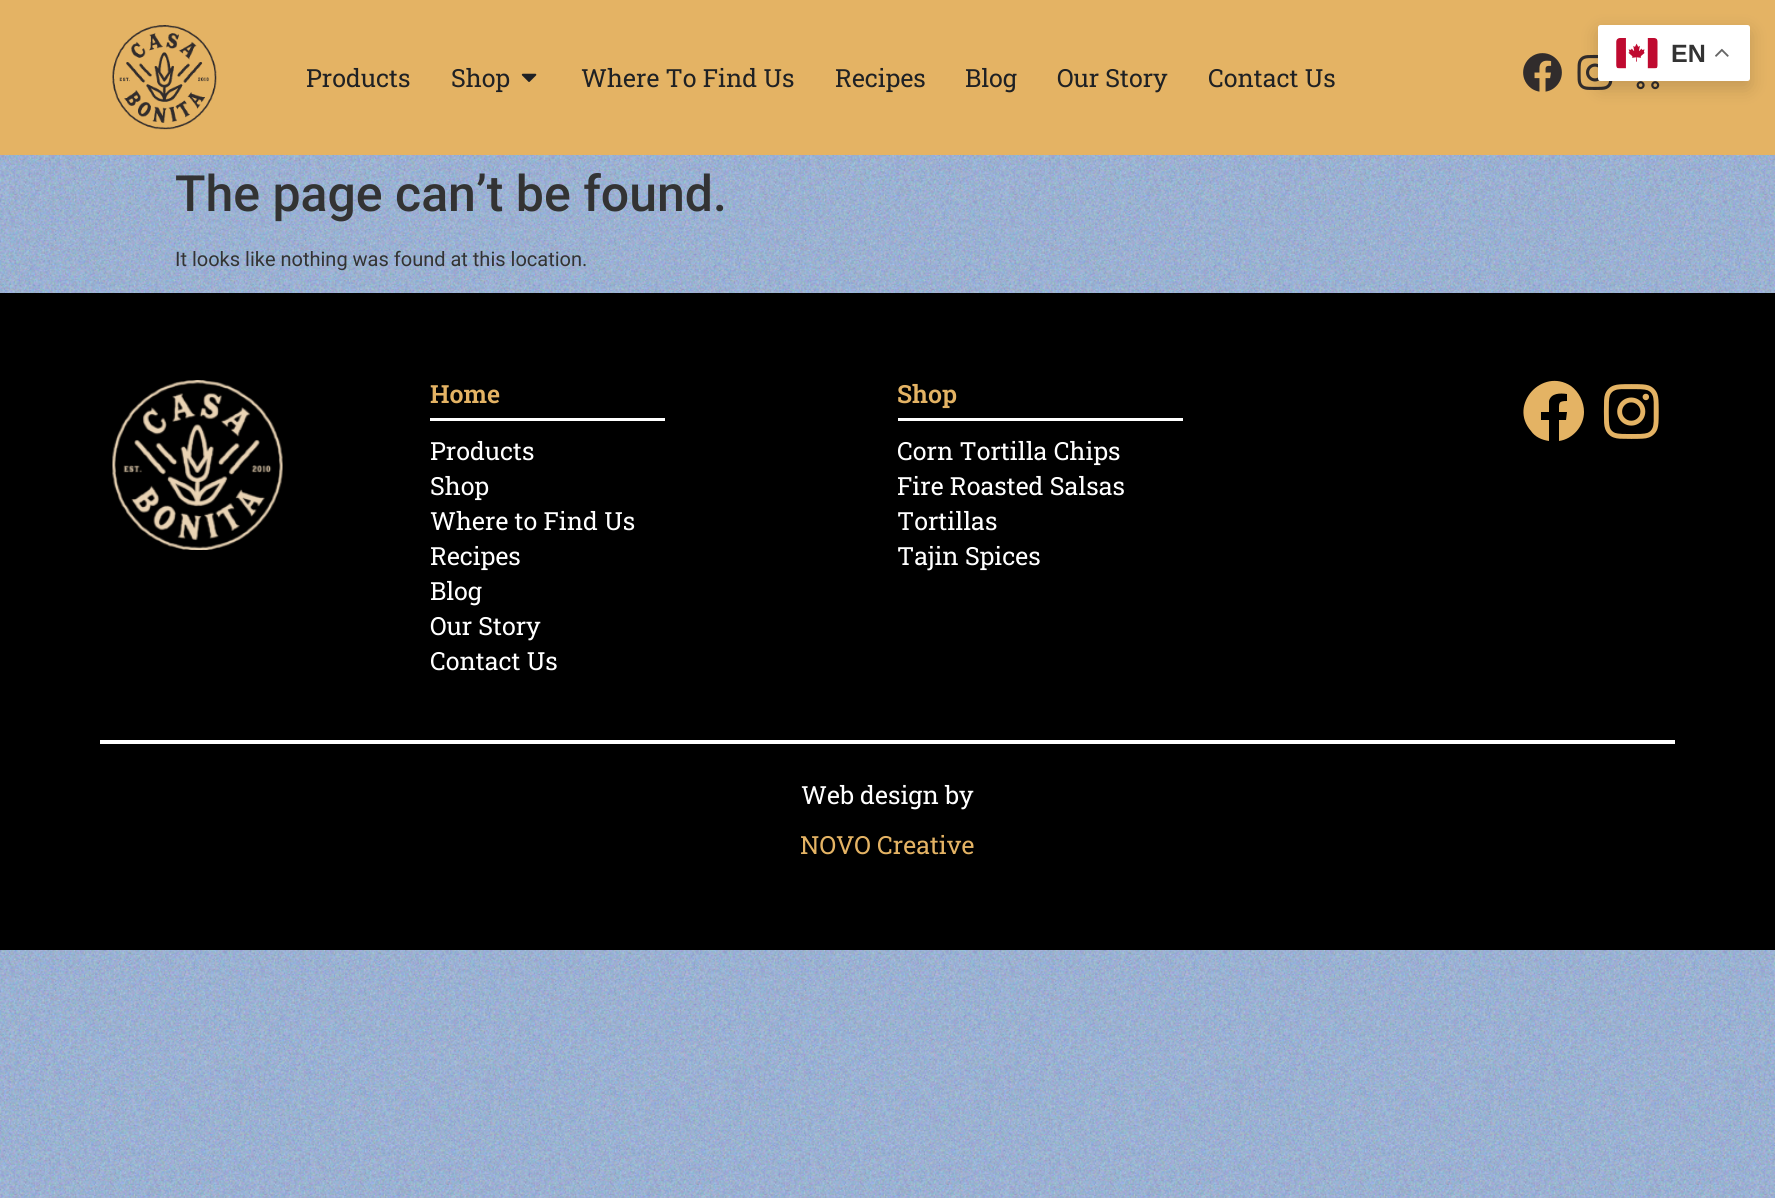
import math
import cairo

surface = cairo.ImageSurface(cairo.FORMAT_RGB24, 1775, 1198)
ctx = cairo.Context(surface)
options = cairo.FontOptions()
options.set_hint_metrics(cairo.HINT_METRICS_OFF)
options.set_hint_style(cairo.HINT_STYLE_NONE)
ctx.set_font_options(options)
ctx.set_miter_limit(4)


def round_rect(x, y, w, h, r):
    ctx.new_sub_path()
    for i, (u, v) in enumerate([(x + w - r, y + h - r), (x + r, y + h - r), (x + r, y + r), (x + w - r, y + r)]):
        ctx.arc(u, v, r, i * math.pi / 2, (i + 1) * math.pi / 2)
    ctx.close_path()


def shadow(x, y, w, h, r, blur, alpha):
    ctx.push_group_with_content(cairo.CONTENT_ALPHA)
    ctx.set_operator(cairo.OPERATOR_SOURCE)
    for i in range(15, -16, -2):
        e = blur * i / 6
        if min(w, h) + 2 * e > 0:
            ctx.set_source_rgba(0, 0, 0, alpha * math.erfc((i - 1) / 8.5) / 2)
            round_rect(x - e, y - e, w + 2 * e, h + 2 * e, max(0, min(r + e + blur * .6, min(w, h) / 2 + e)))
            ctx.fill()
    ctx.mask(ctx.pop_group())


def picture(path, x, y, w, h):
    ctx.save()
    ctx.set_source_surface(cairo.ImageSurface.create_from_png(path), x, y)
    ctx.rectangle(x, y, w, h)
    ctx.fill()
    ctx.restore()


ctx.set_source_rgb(1, 1, 1)
ctx.paint()
picture("img1.png", 0, 155, 1775, 1043)
ctx.set_source_rgb(0.894, 0.702, 0.392)
ctx.rectangle(0, 0, 1775, 155)
ctx.fill()
picture("img7.png", 1577, 54, 36, 36)
picture("img8.png", 1636, 81, 24, 9)
ctx.set_source_rgb(0, 0, 0)
shadow(1598, 31, 152, 57, 2.5, 9.5, 0.15)
ctx.set_source_rgb(1, 1, 1)
round_rect(1598, 25, 152, 56, 2.5)
ctx.fill()
picture("img2.png", 1616, 38, 42, 31)
ctx.select_font_face("Liberation Sans", cairo.FONT_SLANT_NORMAL, cairo.FONT_WEIGHT_BOLD)
ctx.set_font_size(25)
ctx.set_source_rgb(0.2, 0.2, 0.2)
ctx.move_to(1671, 62)
ctx.show_text("EN")
picture("img3.png", 1715, 48, 14, 9)
picture("img4.png", 112, 25, 105, 105)
ctx.select_font_face("Roboto Slab")
ctx.set_source_rgb(0.122, 0.129, 0.141)
ctx.move_to(306, 87)
ctx.show_text("Products")
ctx.move_to(451, 87)
ctx.show_text("Shop")
picture("img5.png", 521, 73, 16, 9)
ctx.move_to(581, 87)
ctx.show_text("Where To Find Us")
ctx.move_to(835, 87)
ctx.show_text("Recipes")
ctx.move_to(965, 87)
ctx.show_text("Blog")
ctx.move_to(1057, 87)
ctx.show_text("Our Story")
ctx.move_to(1208, 87)
ctx.show_text("Contact Us")
picture("img6.png", 1523, 53, 39, 39)
ctx.select_font_face("Roboto Medium")
ctx.set_font_size(50)
ctx.set_source_rgb(0.2, 0.2, 0.2)
ctx.move_to(175, 211)
ctx.show_text("The page can’t be found.")
ctx.select_font_face("Roboto")
ctx.set_font_size(20)
ctx.move_to(175, 266)
ctx.show_text("It looks like nothing was found at this location.")
ctx.set_source_rgb(0, 0, 0)
ctx.rectangle(0, 293, 1775, 657)
ctx.fill()
picture("img9.png", 112, 380, 171, 170)
ctx.select_font_face("Roboto Slab SemiBold")
ctx.set_font_size(25)
ctx.set_source_rgb(0.894, 0.702, 0.392)
ctx.move_to(430, 403)
ctx.show_text("Home")
ctx.set_source_rgb(1, 1, 1)
ctx.rectangle(430, 418, 235, 3)
ctx.fill()
ctx.select_font_face("Roboto Slab")
ctx.move_to(430, 460)
ctx.show_text("Products")
ctx.move_to(430, 495)
ctx.show_text("Shop")
ctx.move_to(430, 530)
ctx.show_text("Where to Find Us")
ctx.move_to(430, 565)
ctx.show_text("Recipes")
ctx.move_to(430, 600)
ctx.show_text("Blog")
ctx.move_to(430, 635)
ctx.show_text("Our Story")
ctx.move_to(430, 670)
ctx.show_text("Contact Us")
ctx.select_font_face("Roboto Slab SemiBold")
ctx.set_source_rgb(0.894, 0.702, 0.392)
ctx.move_to(897, 403)
ctx.show_text("Shop")
ctx.set_source_rgb(1, 1, 1)
ctx.rectangle(898, 418, 285, 3)
ctx.fill()
ctx.select_font_face("Roboto Slab")
ctx.move_to(897, 460)
ctx.show_text("Corn Tortilla Chips")
ctx.move_to(897, 495)
ctx.show_text("Fire Roasted Salsas")
ctx.move_to(897, 530)
ctx.show_text("Tortillas")
ctx.move_to(897, 565)
ctx.show_text("Tajin Spices")
ctx.set_source_rgb(0.894, 0.702, 0.392)
ctx.new_path()
ctx.move_to(1584, 412)
ctx.curve_to(1584, 426, 1573, 439, 1559, 441)
ctx.line_to(1559, 420)
ctx.line_to(1566, 420)
ctx.line_to(1567, 412)
ctx.line_to(1559, 412)
ctx.curve_to(1559, 403, 1558, 401, 1567, 401)
ctx.line_to(1567, 394)
ctx.curve_to(1560, 393, 1551, 393, 1549, 401)
ctx.line_to(1549, 412)
ctx.line_to(1541, 412)
ctx.line_to(1541, 420)
ctx.line_to(1549, 420)
ctx.line_to(1549, 441)
ctx.curve_to(1542, 440, 1535, 437, 1531, 431)
ctx.curve_to(1508, 405, 1542, 367, 1571, 386)
ctx.curve_to(1579, 392, 1584, 402, 1584, 412)
ctx.close_path()
ctx.fill()
picture("img10.png", 1603, 384, 56, 55)
ctx.set_source_rgb(1, 1, 1)
ctx.rectangle(100, 740, 1575, 4)
ctx.fill()
ctx.move_to(801, 804)
ctx.show_text("Web design by")
ctx.set_source_rgb(0.894, 0.702, 0.392)
ctx.move_to(800, 854)
ctx.show_text("NOVO Creative")
surface.write_to_png("page.png")
